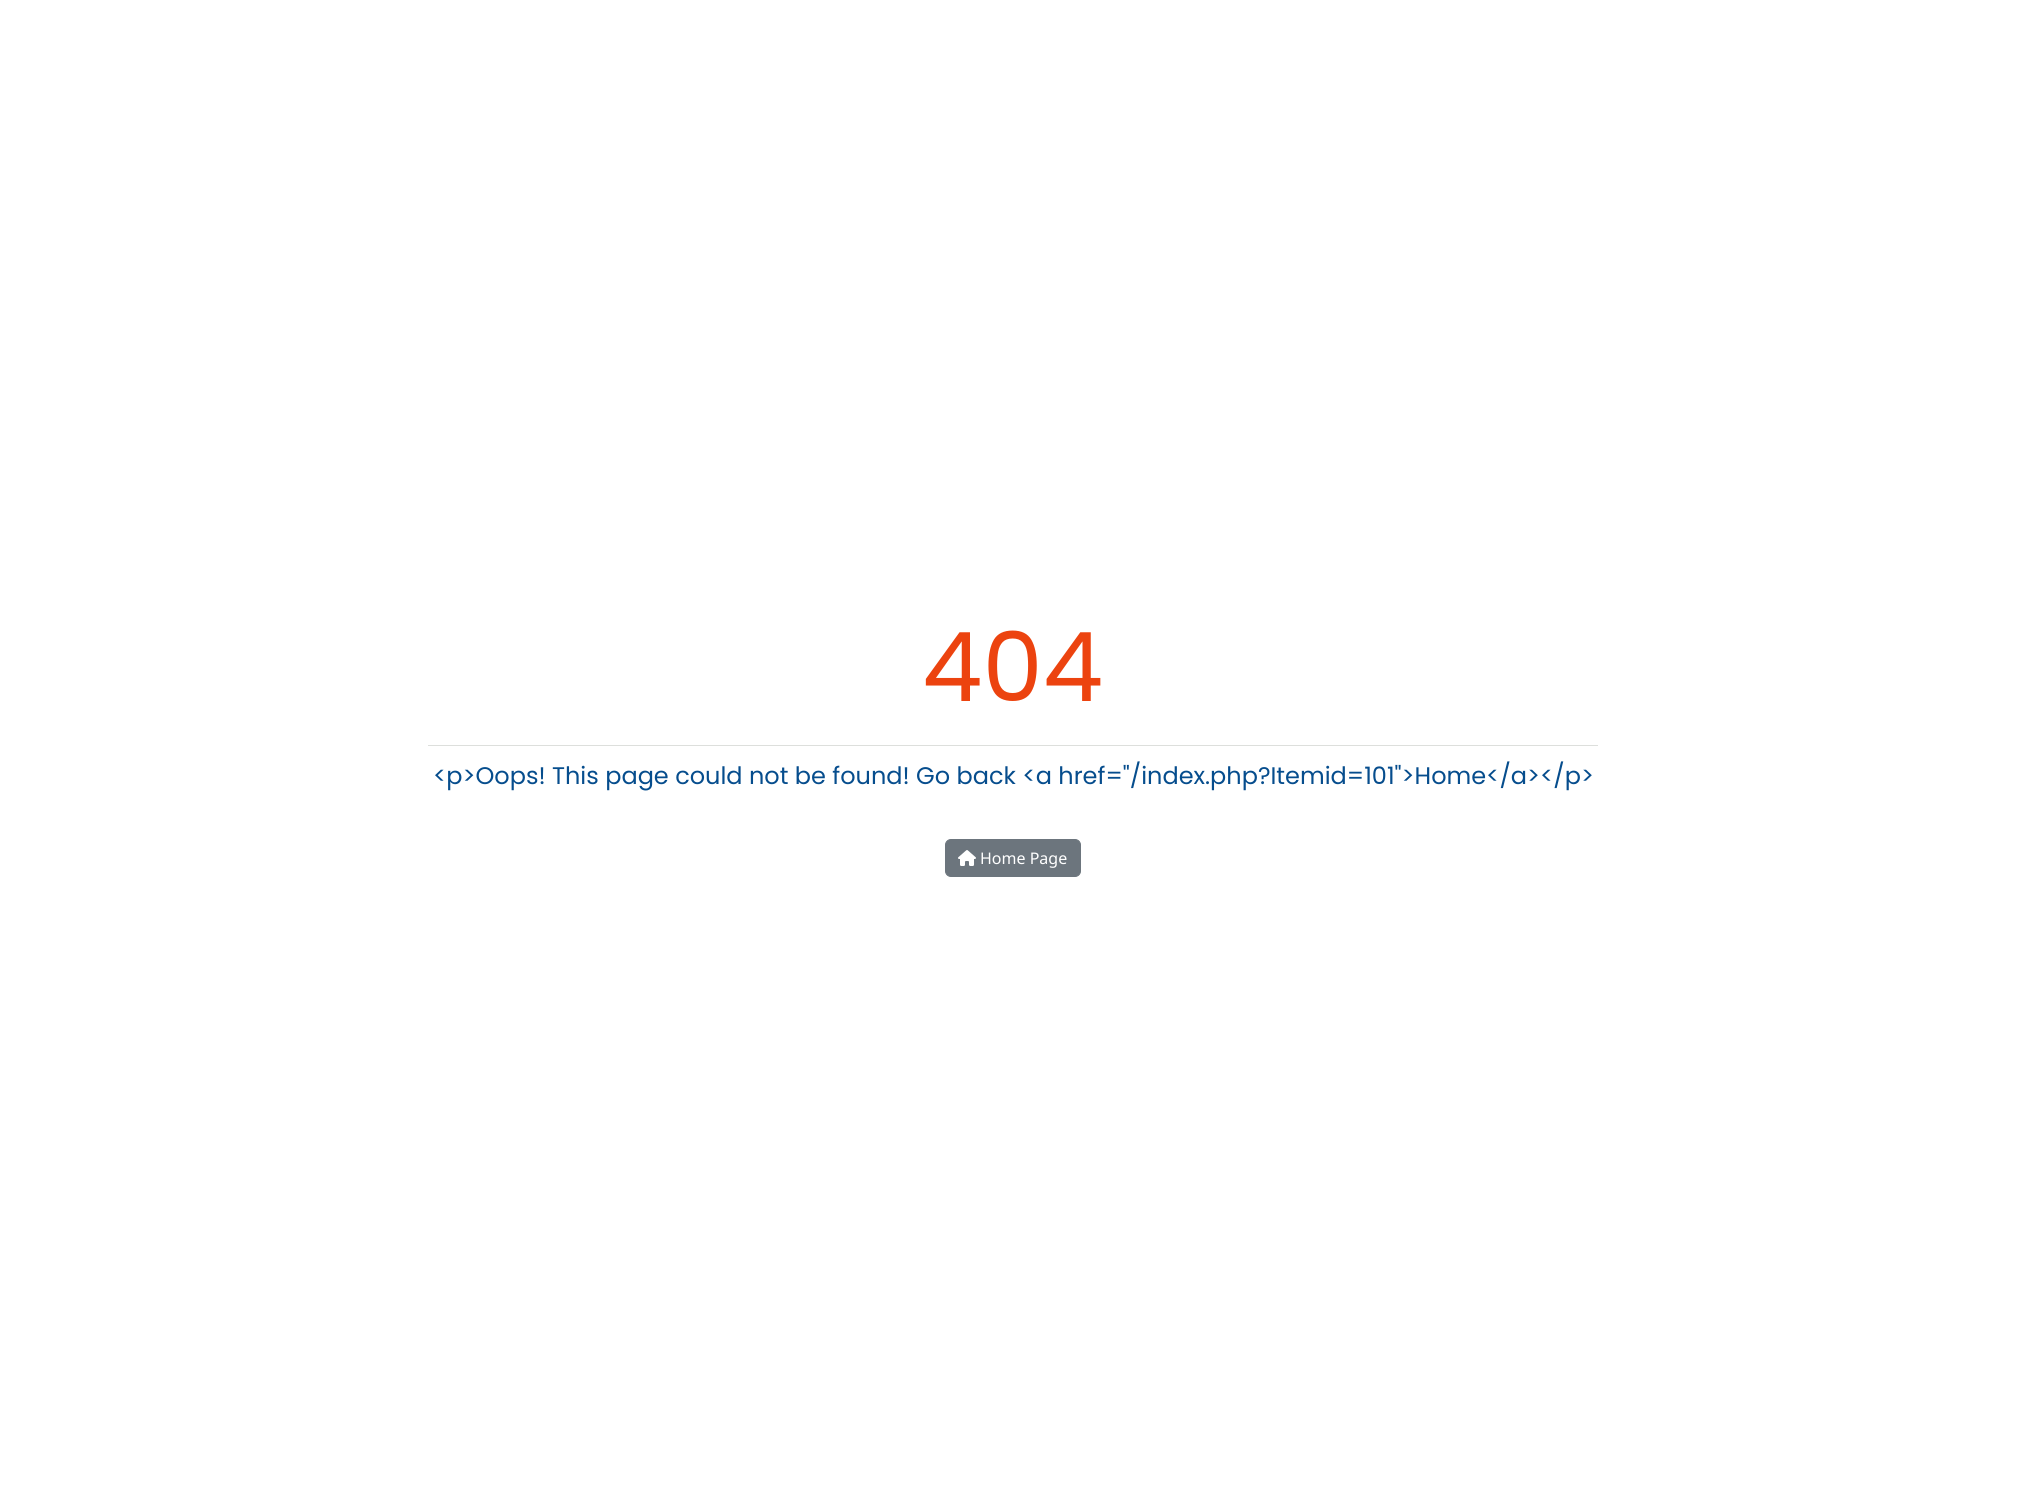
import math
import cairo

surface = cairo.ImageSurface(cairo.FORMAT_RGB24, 2026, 1487)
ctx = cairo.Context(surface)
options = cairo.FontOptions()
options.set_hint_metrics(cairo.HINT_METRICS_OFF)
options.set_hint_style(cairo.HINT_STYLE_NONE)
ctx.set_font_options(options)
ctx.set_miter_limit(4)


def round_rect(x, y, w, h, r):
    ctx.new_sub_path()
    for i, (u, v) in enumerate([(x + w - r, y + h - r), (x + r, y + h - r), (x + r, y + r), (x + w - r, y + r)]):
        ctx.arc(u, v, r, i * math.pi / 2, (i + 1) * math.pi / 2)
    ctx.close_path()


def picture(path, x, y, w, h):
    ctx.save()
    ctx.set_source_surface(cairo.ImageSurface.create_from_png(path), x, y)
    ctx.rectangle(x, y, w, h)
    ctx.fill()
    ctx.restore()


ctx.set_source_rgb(1, 1, 1)
ctx.paint()
ctx.set_source_rgb(0.867, 0.875, 0.863)
ctx.rectangle(428, 745, 1170, 1)
ctx.fill()
ctx.select_font_face("Poppins")
ctx.set_font_size(96)
ctx.set_source_rgb(0.925, 0.263, 0.059)
ctx.move_to(922, 701)
ctx.show_text("404")
ctx.set_font_size(24)
ctx.set_source_rgb(0.024, 0.302, 0.553)
ctx.move_to(433, 784)
ctx.show_text("<p>Oops! This page could not be found! Go back <a href=\"/index.php?Itemid=101\">Home</a></p>")
ctx.set_source_rgb(0.424, 0.459, 0.49)
round_rect(945.5, 839.5, 135, 37, 5.5)
ctx.fill_preserve()
ctx.set_line_width(1)
ctx.stroke()
picture("img1.png", 958, 850, 18, 16)
ctx.select_font_face("Noto Sans")
ctx.set_font_size(16)
ctx.set_source_rgb(1, 1, 1)
ctx.move_to(980, 864)
ctx.show_text("Home Page")
surface.write_to_png("page.png")
